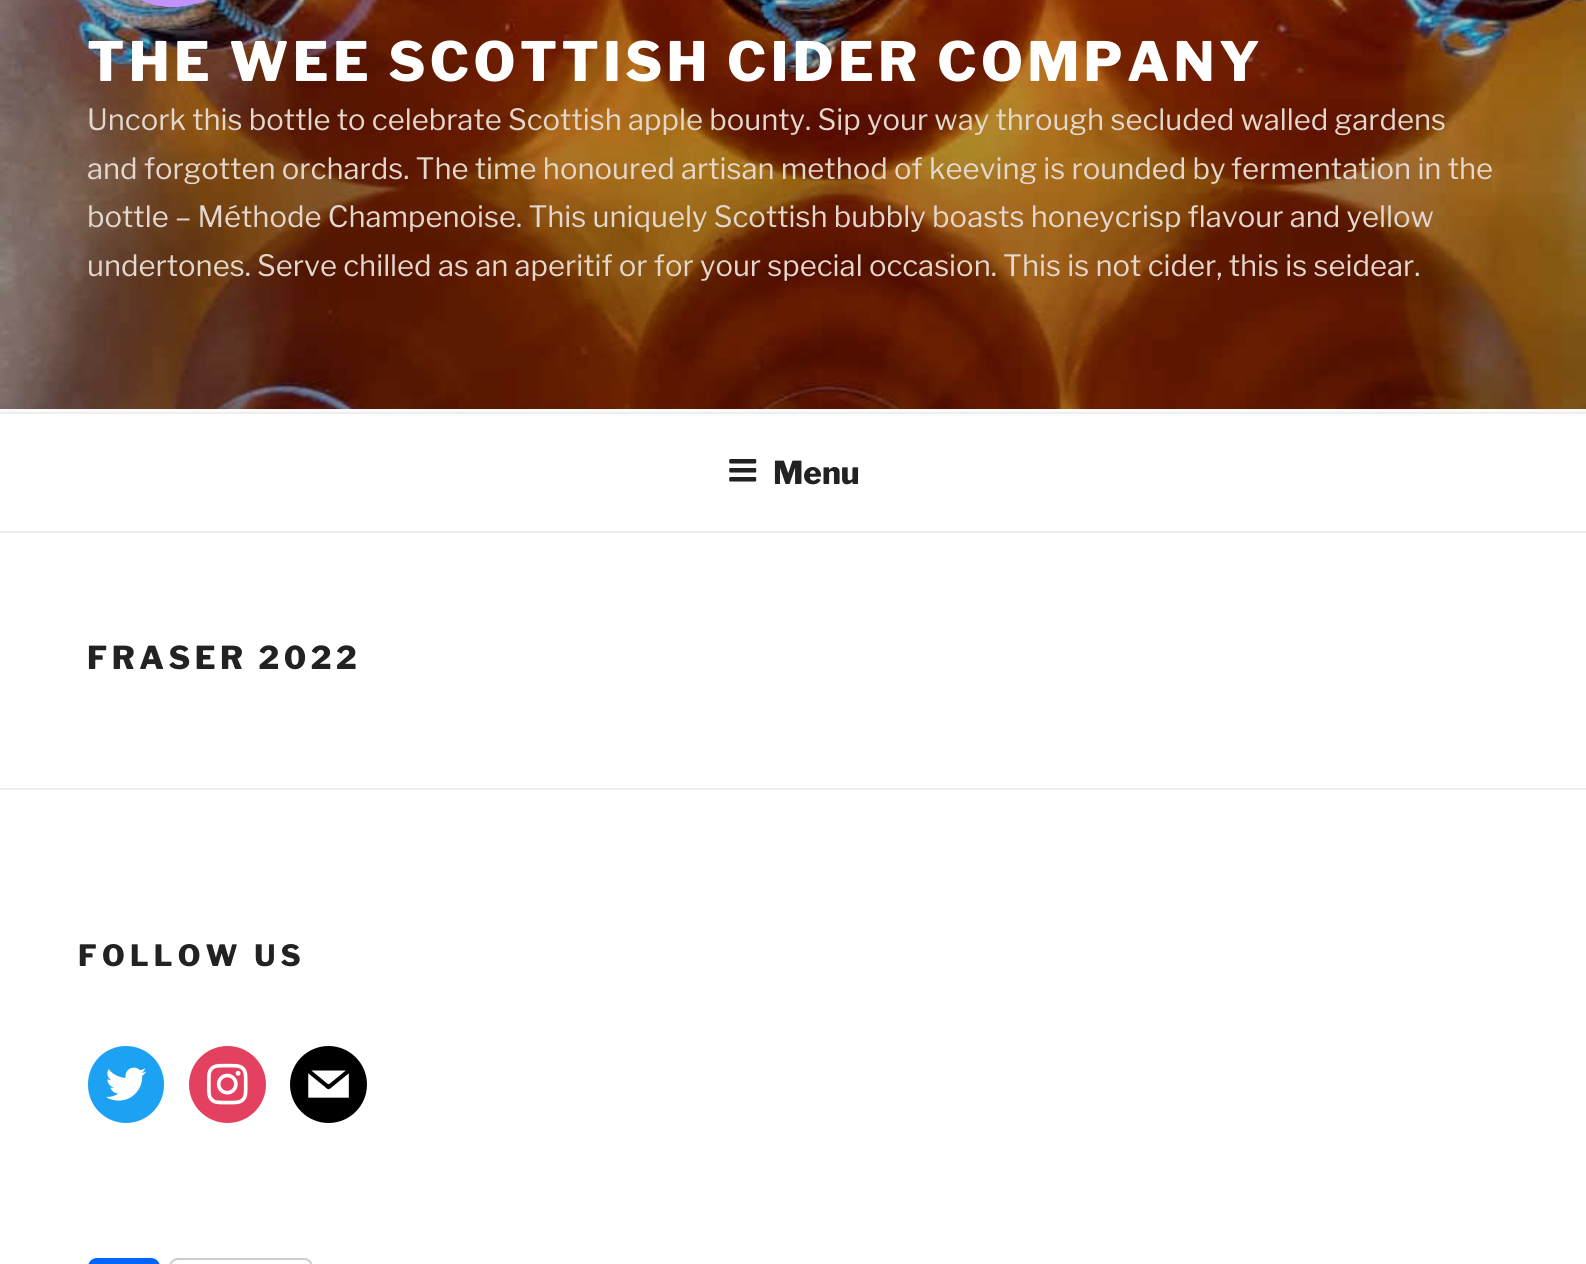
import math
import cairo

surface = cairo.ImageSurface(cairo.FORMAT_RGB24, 1586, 1264)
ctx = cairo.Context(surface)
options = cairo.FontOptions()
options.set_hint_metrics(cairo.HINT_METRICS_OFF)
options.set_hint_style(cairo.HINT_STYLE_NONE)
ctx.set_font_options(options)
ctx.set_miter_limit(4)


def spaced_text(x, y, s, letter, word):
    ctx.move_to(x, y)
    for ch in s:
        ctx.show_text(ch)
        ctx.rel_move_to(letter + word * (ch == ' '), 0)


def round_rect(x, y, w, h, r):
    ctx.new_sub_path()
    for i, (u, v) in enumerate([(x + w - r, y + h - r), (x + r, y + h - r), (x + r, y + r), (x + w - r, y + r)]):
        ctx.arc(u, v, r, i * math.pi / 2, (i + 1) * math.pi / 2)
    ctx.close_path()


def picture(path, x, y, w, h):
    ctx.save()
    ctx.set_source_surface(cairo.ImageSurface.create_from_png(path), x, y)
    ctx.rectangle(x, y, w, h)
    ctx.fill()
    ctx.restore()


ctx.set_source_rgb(1, 1, 1)
ctx.paint()
ctx.set_source_rgb(0.98, 0.98, 0.98)
ctx.rectangle(0, 409, 1586, 3)
ctx.fill()
picture("img1.png", 0, 0, 1586, 409)
picture("img2.png", 141, 0, 65, 8)
ctx.select_font_face("Libre Franklin Thin")
ctx.set_font_size(54)
ctx.set_source_rgb(1, 1, 1)
spaced_text(87, 81, "THE WEE SCOTTISH CIDER COMPANY", 4.3, 0)
ctx.select_font_face("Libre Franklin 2 Thin")
ctx.set_font_size(29.25)
ctx.set_source_rgb(0.894, 0.843, 0.808)
ctx.move_to(87, 130)
ctx.show_text("Uncork this bottle to celebrate Scottish apple bounty. Sip your way through secluded walled gardens")
ctx.move_to(87, 179)
ctx.show_text("and forgotten orchards. The time honoured artisan method of keeving is rounded by")
ctx.move_to(1231, 179)
ctx.show_text("fermentation in the")
ctx.move_to(87, 227)
ctx.show_text("bottle – Méthode Champenoise. This uniquely Scottish bubbly boasts honeycrisp flavour and yellow")
ctx.move_to(87, 276)
ctx.show_text("undertones. Serve chilled as an aperitif or for your special occasion. This is not cider, this is seidear.")
ctx.set_source_rgb(0.933, 0.933, 0.933)
ctx.rectangle(0, 412, 1586, 2)
ctx.fill()
ctx.rectangle(0, 531, 1586, 2)
ctx.fill()
picture("img3.png", 729, 459, 28, 23)
ctx.select_font_face("Libre Franklin Thin")
ctx.set_font_size(31.5)
ctx.set_source_rgb(0.133, 0.133, 0.133)
ctx.move_to(773, 484)
ctx.show_text("Menu")
spaced_text(87, 669, "FRASER 2022", 4.5, 0)
ctx.set_source_rgb(0.933, 0.933, 0.933)
ctx.rectangle(0, 788, 1586, 2)
ctx.fill()
ctx.set_font_size(29.25)
ctx.set_source_rgb(0.133, 0.133, 0.133)
spaced_text(78, 966, "FOLLOW US", 5.25, 0)
ctx.set_source_rgb(0.114, 0.631, 0.949)
round_rect(88, 1046, 76, 77, 38)
ctx.fill()
picture("img4.png", 106, 1067, 41, 34)
ctx.set_source_rgb(0.894, 0.251, 0.373)
ctx.arc(227.5, 1084.5, 38.5, 0, 2 * math.pi)
ctx.fill()
picture("img5.png", 207, 1063, 41, 42)
ctx.set_source_rgb(0, 0, 0)
ctx.arc(328.5, 1084.5, 38.5, 0, 2 * math.pi)
ctx.fill()
picture("img6.png", 308, 1070, 41, 28)
ctx.set_source_rgb(0.004, 0.4, 1)
round_rect(88, 1258, 72, 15, 9)
ctx.fill()
round_rect(170, 1259, 142, 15, 8)
ctx.set_source_rgb(0.8, 0.8, 0.8)
ctx.stroke()
surface.write_to_png("page.png")
